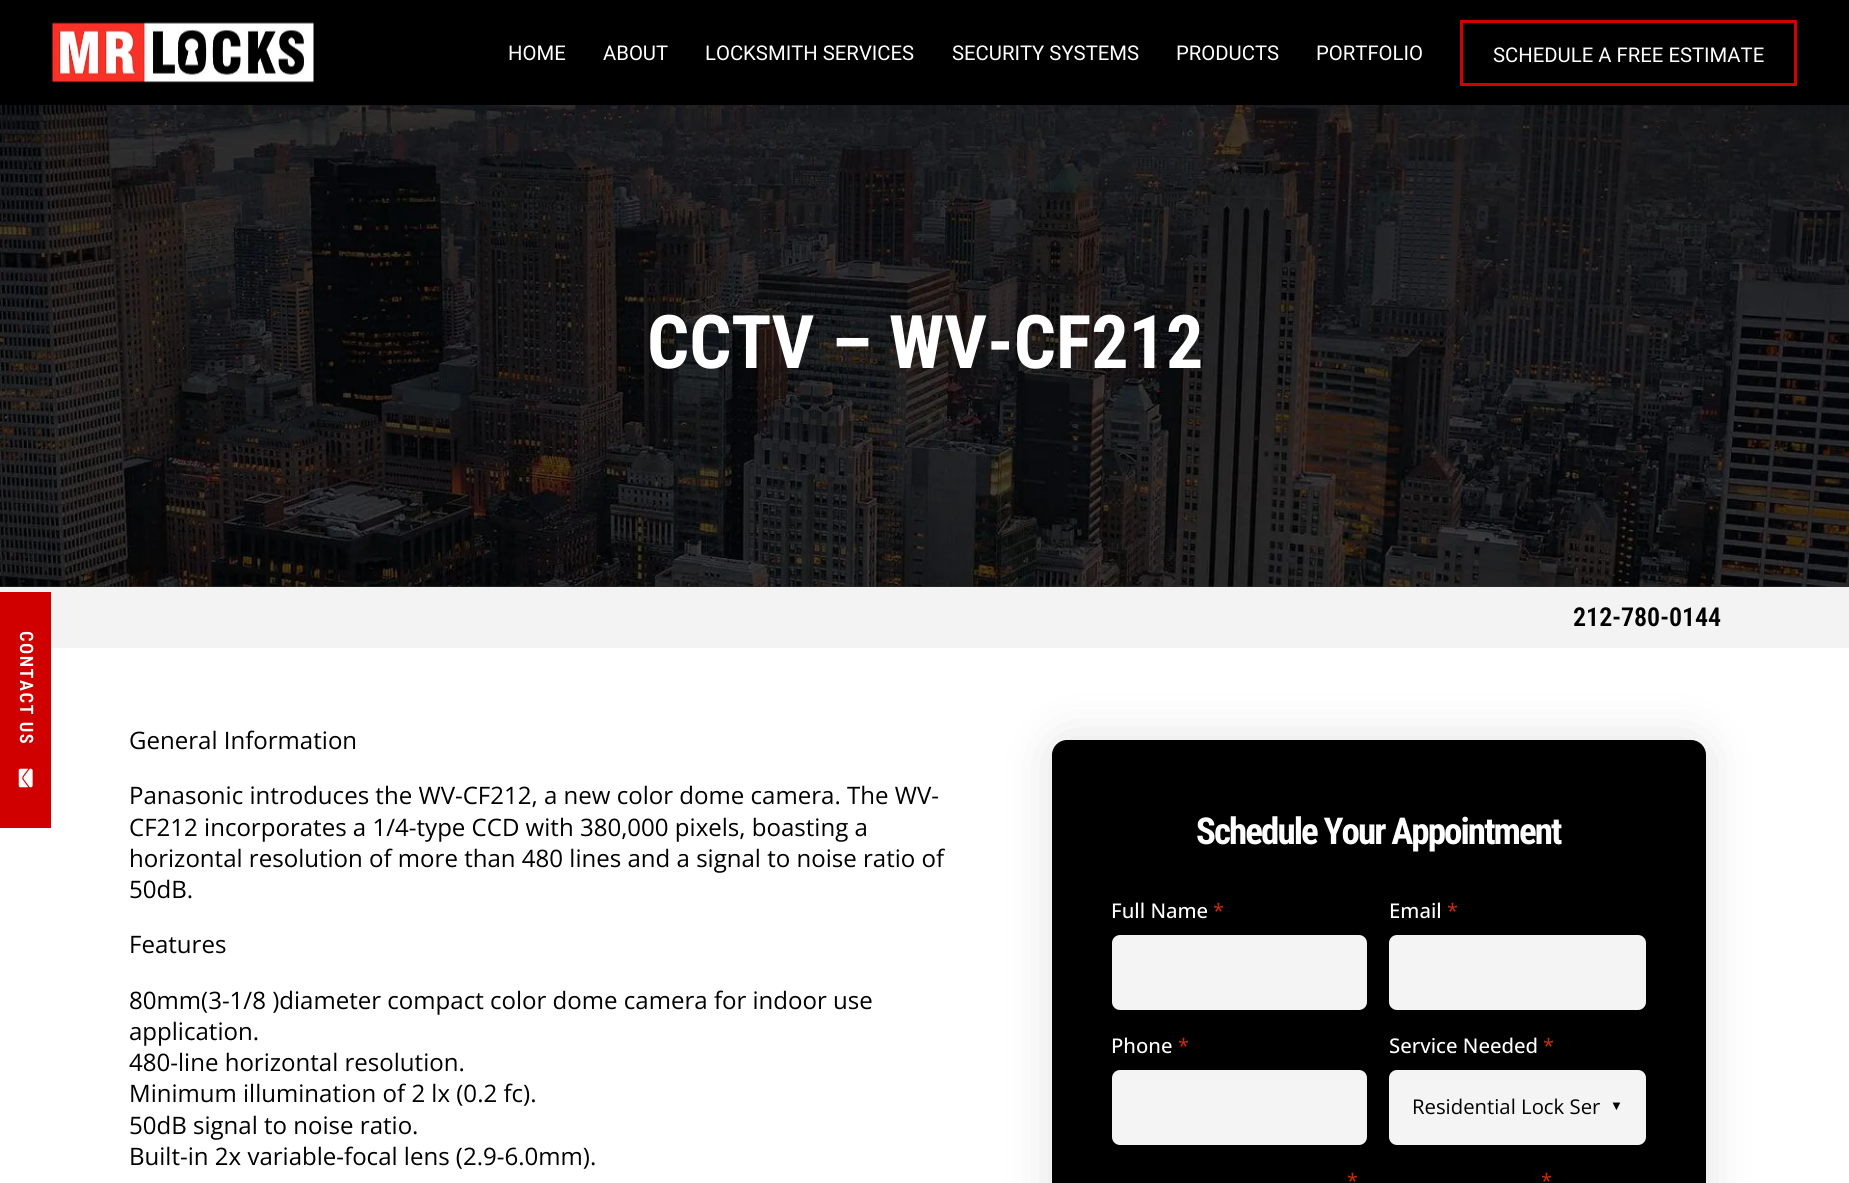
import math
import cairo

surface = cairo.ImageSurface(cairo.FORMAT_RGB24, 1849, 1183)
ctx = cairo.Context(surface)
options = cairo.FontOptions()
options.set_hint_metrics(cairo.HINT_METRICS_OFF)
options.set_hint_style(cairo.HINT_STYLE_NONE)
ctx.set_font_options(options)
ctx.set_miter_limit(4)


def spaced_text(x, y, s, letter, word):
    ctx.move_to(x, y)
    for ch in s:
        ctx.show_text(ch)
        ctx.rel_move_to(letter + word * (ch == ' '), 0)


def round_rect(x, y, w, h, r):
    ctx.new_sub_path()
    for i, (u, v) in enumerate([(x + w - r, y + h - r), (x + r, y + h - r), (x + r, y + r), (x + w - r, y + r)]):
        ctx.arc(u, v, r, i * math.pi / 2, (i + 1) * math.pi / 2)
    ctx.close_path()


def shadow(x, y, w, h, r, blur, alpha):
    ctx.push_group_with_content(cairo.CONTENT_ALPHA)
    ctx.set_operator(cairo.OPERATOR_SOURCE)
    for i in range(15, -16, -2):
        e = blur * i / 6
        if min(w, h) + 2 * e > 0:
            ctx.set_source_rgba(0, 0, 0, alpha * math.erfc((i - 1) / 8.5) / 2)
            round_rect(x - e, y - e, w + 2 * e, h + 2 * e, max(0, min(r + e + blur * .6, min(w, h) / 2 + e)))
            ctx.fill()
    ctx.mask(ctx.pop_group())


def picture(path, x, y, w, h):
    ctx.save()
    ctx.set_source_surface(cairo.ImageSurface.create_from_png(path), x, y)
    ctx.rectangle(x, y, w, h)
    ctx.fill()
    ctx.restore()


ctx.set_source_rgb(1, 1, 1)
ctx.paint()
ctx.set_source_rgb(0, 0, 0)
ctx.rectangle(0, 0, 1849, 105)
ctx.fill()
picture("img1.png", 52, 22, 262, 61)
ctx.select_font_face("Roboto")
ctx.set_font_size(20.3)
ctx.set_source_rgb(1, 1, 1)
ctx.move_to(508, 60)
ctx.show_text("HOME")
ctx.move_to(603, 60)
ctx.show_text("ABOUT")
ctx.move_to(705, 60)
ctx.show_text("LOCKSMITH SERVICES")
ctx.move_to(952, 60)
ctx.show_text("SECURITY SYSTEMS")
ctx.move_to(1176, 60)
ctx.show_text("PRODUCTS")
ctx.move_to(1316, 60)
ctx.show_text("PORTFOLIO")
ctx.rectangle(1461.5, 21.5, 334, 63)
ctx.set_source_rgb(0.82, 0.012, 0.008)
ctx.set_line_width(3)
ctx.stroke()
ctx.set_source_rgb(1, 1, 1)
ctx.move_to(1493, 62)
ctx.show_text("SCHEDULE A FREE ESTIMATE")
ctx.set_source_rgb(0.188, 0.188, 0.188)
ctx.rectangle(0, 586, 1849, 1)
ctx.fill()
picture("img2.png", 0, 105, 1849, 482)
ctx.select_font_face("Roboto Condensed", cairo.FONT_SLANT_NORMAL, cairo.FONT_WEIGHT_BOLD)
ctx.set_font_size(74)
ctx.set_source_rgb(1, 1, 1)
ctx.move_to(647, 368)
ctx.show_text("CCTV – WV-CF212")
ctx.set_source_rgb(0.953, 0.953, 0.953)
ctx.rectangle(0, 587, 1849, 61)
ctx.fill()
ctx.select_font_face("Roboto Condensed SemiBold")
ctx.set_font_size(26)
ctx.set_source_rgb(0, 0, 0)
ctx.move_to(1573, 626)
ctx.show_text("212-780-0144")
ctx.set_source_rgb(0.82, 0, 0)
ctx.rectangle(0, 592, 51, 236)
ctx.fill()
ctx.set_font_size(18.5)
ctx.set_source_rgb(1, 1, 1)
ctx.save()
ctx.translate(20, 631)
ctx.rotate(90 * math.pi / 180)
spaced_text(0, 0, "CONTACT US", 1.5, 0)
ctx.restore()
picture("img3.png", 18, 768, 15, 20)
ctx.select_font_face("Open Sans")
ctx.set_font_size(24.05)
ctx.set_source_rgb(0, 0, 0)
ctx.move_to(129, 749)
ctx.show_text("General Information")
ctx.move_to(129, 804)
ctx.show_text("Panasonic introduces the WV-CF212, a new color dome camera. The WV-")
ctx.move_to(129, 836)
ctx.show_text("CF212 incorporates a 1/4-type CCD with 380,000 pixels, boasting a")
ctx.move_to(129, 867)
ctx.show_text("horizontal resolution of more than 480 lines and a signal to noise ratio of")
ctx.move_to(129, 898)
ctx.show_text("50dB.")
ctx.move_to(129, 953)
ctx.show_text("Features")
ctx.move_to(129, 1009)
ctx.show_text("80mm(3-1/8 )diameter compact color dome camera for indoor use")
ctx.move_to(129, 1040)
ctx.show_text("application.")
ctx.move_to(129, 1071)
ctx.show_text("480-line horizontal resolution.")
ctx.move_to(129, 1102)
ctx.show_text("Minimum illumination of 2 lx (0.2 fc).")
ctx.move_to(129, 1134)
ctx.show_text("50dB signal to noise ratio.")
ctx.move_to(129, 1165)
ctx.show_text("Built-in 2x variable-focal lens (2.9-6.0mm).")
ctx.set_source_rgb(0, 0, 0)
shadow(1052, 740, 654, 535, 15, 25.5, 0.12)
ctx.set_source_rgb(0, 0, 0)
round_rect(1052, 740, 654, 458, 15)
ctx.fill()
ctx.select_font_face("Roboto Condensed", cairo.FONT_SLANT_NORMAL, cairo.FONT_WEIGHT_BOLD)
ctx.set_font_size(37)
ctx.set_source_rgb(1, 1, 1)
spaced_text(1196, 844, "Schedule Your Appointment", -1.95, 0)
ctx.select_font_face("Open Sans Medium")
ctx.set_font_size(20.3)
ctx.move_to(1111, 918)
ctx.show_text("Full Name")
ctx.set_font_size(20)
ctx.set_source_rgb(0.753, 0.169, 0.039)
ctx.move_to(1213, 918)
ctx.show_text("*")
ctx.set_source_rgb(0.957, 0.957, 0.957)
round_rect(1112, 935, 255, 75, 8)
ctx.fill()
ctx.set_font_size(20.3)
ctx.set_source_rgb(1, 1, 1)
ctx.move_to(1389, 918)
ctx.show_text("Email")
ctx.set_font_size(20)
ctx.set_source_rgb(0.753, 0.169, 0.039)
ctx.move_to(1447, 918)
ctx.show_text("*")
ctx.set_source_rgb(0.957, 0.957, 0.957)
round_rect(1389, 935, 257, 75, 8)
ctx.fill()
ctx.set_font_size(20.3)
ctx.set_source_rgb(1, 1, 1)
ctx.move_to(1111, 1053)
ctx.show_text("Phone")
ctx.set_font_size(20)
ctx.set_source_rgb(0.753, 0.169, 0.039)
ctx.move_to(1178, 1053)
ctx.show_text("*")
ctx.set_source_rgb(0.957, 0.957, 0.957)
round_rect(1112, 1070, 255, 75, 8)
ctx.fill()
ctx.set_font_size(20.3)
ctx.set_source_rgb(1, 1, 1)
ctx.move_to(1389, 1053)
ctx.show_text("Service Needed")
ctx.set_font_size(20)
ctx.set_source_rgb(0.753, 0.169, 0.039)
ctx.move_to(1543, 1053)
ctx.show_text("*")
ctx.set_source_rgb(0.957, 0.957, 0.957)
round_rect(1389, 1070, 257, 75, 8)
ctx.fill()
ctx.select_font_face("Open Sans")
ctx.set_font_size(20.3)
ctx.set_source_rgb(0, 0, 0)
ctx.move_to(1412, 1114)
ctx.show_text("Residential Lock Ser")
ctx.select_font_face("Liberation Sans")
ctx.set_font_size(13)
ctx.move_to(1610, 1110)
ctx.show_text("▼")
ctx.select_font_face("Open Sans Medium")
ctx.set_font_size(20)
ctx.set_source_rgb(0.753, 0.169, 0.039)
ctx.move_to(1347, 1188)
ctx.show_text("*")
ctx.move_to(1541, 1188)
ctx.show_text("*")
surface.write_to_png("page.png")
